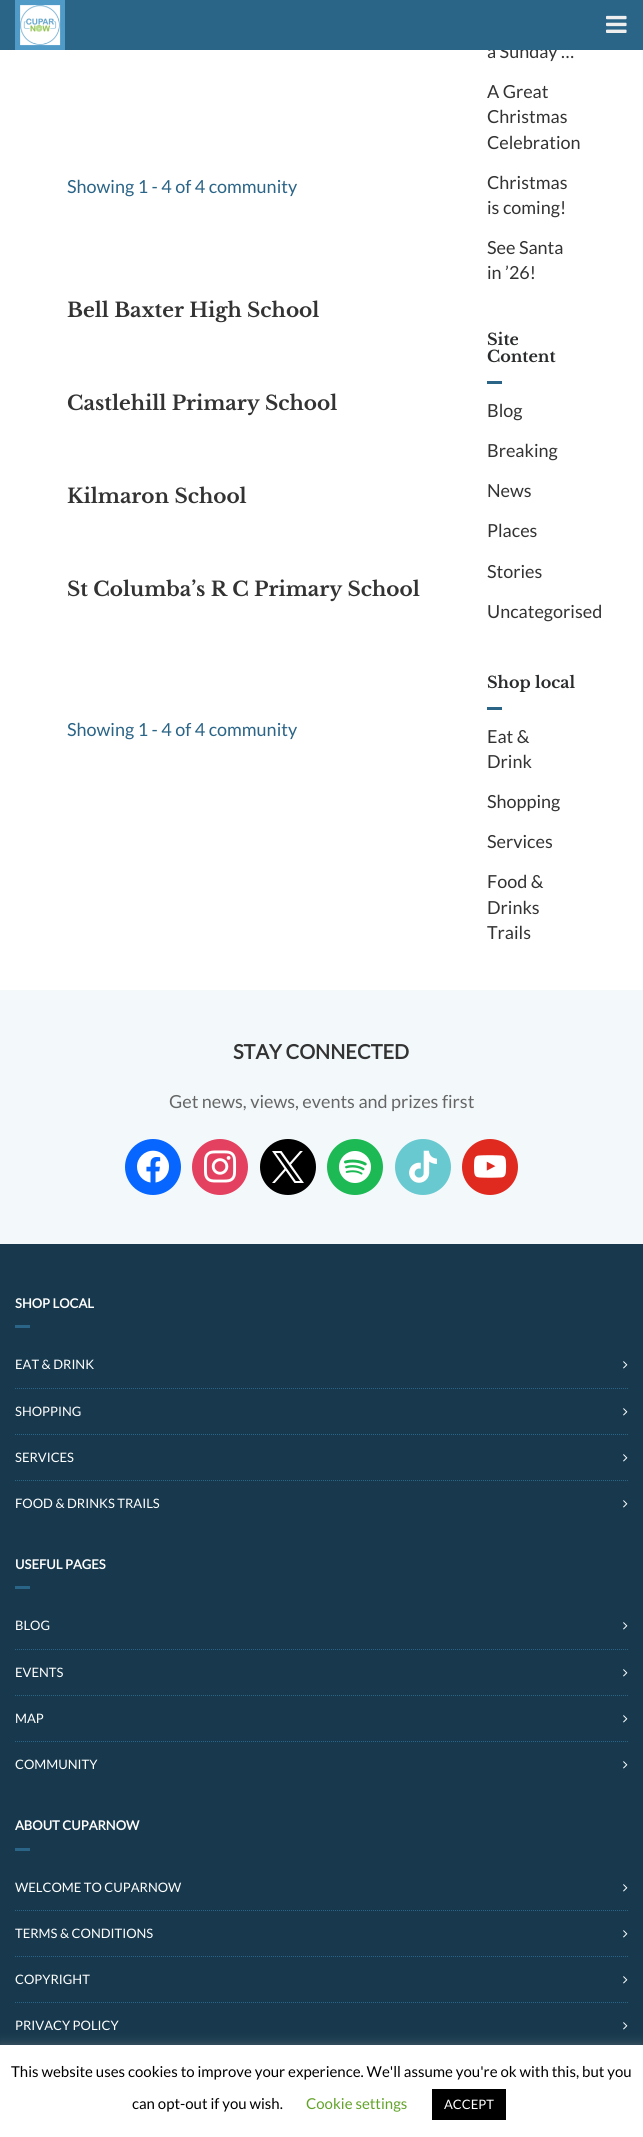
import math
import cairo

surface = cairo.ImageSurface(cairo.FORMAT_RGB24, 643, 2137)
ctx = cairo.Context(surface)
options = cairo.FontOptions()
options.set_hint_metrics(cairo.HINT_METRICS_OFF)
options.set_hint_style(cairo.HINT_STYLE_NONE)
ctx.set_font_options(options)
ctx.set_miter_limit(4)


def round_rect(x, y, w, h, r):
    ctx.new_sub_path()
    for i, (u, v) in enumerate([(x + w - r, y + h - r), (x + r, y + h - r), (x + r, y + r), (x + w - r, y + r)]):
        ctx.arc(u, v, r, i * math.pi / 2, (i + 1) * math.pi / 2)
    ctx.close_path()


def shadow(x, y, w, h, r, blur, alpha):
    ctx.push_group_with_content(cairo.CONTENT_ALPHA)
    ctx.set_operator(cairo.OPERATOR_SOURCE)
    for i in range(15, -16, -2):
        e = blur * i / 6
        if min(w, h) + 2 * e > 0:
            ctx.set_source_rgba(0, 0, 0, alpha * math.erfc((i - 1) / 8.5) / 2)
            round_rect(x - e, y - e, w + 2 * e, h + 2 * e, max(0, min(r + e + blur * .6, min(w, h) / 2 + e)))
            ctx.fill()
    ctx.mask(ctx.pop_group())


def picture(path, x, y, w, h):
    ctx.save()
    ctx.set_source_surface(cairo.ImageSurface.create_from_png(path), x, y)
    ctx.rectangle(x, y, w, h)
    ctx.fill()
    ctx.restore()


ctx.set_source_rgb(1, 1, 1)
ctx.paint()
ctx.select_font_face("Lato")
ctx.set_font_size(18)
ctx.set_source_rgb(0.2, 0.2, 0.2)
ctx.move_to(487, 58)
ctx.show_text("a Sunday …")
ctx.set_source_rgb(0.165, 0.392, 0.529)
ctx.rectangle(0, 0, 643, 50)
ctx.fill()
ctx.set_source_rgb(0.314, 0.604, 0.784)
ctx.rectangle(15, 0, 50, 50)
ctx.fill()
picture("img1.png", 20, 5, 41, 41)
picture("img2.png", 606, 15, 21, 18)
ctx.set_source_rgb(0.165, 0.392, 0.529)
ctx.move_to(67, 193)
ctx.show_text("Showing 1 - 4 of 4 community")
ctx.select_font_face("Libre Baskerville", cairo.FONT_SLANT_NORMAL, cairo.FONT_WEIGHT_BOLD)
ctx.set_font_size(20)
ctx.set_source_rgb(0.2, 0.2, 0.2)
ctx.move_to(67, 317)
ctx.show_text("Bell Baxter High School")
ctx.move_to(67, 410)
ctx.show_text("Castlehill Primary School")
ctx.move_to(67, 503)
ctx.show_text("Kilmaron School")
ctx.move_to(67, 596)
ctx.show_text("St Columba’s R C Primary School")
ctx.select_font_face("Lato")
ctx.set_font_size(18)
ctx.set_source_rgb(0.165, 0.392, 0.529)
ctx.move_to(67, 736)
ctx.show_text("Showing 1 - 4 of 4 community")
ctx.set_source_rgb(0.2, 0.2, 0.2)
ctx.move_to(487, 98)
ctx.show_text("A Great")
ctx.move_to(487, 123)
ctx.show_text("Christmas")
ctx.move_to(487, 149)
ctx.show_text("Celebration")
ctx.move_to(487, 189)
ctx.show_text("Christmas")
ctx.move_to(487, 214)
ctx.show_text("is coming!")
ctx.move_to(487, 254)
ctx.show_text("See Santa")
ctx.move_to(487, 279)
ctx.show_text("in ’26!")
ctx.select_font_face("Libre Baskerville", cairo.FONT_SLANT_NORMAL, cairo.FONT_WEIGHT_BOLD)
ctx.set_font_size(16)
ctx.set_source_rgb(0.161, 0.169, 0.173)
ctx.move_to(487, 345)
ctx.show_text("Site")
ctx.move_to(487, 362)
ctx.show_text("Content")
ctx.set_source_rgb(0.165, 0.392, 0.529)
ctx.rectangle(487, 381, 15, 3)
ctx.fill()
ctx.select_font_face("Lato")
ctx.set_font_size(18)
ctx.set_source_rgb(0.2, 0.2, 0.2)
ctx.move_to(487, 417)
ctx.show_text("Blog")
ctx.move_to(487, 457)
ctx.show_text("Breaking")
ctx.move_to(487, 497)
ctx.show_text("News")
ctx.move_to(487, 537)
ctx.show_text("Places")
ctx.move_to(487, 578)
ctx.show_text("Stories")
ctx.move_to(487, 618)
ctx.show_text("Uncategorised")
ctx.select_font_face("Libre Baskerville", cairo.FONT_SLANT_NORMAL, cairo.FONT_WEIGHT_BOLD)
ctx.set_font_size(16)
ctx.set_source_rgb(0.161, 0.169, 0.173)
ctx.move_to(487, 688)
ctx.show_text("Shop local")
ctx.set_source_rgb(0.165, 0.392, 0.529)
ctx.rectangle(487, 707, 15, 3)
ctx.fill()
ctx.select_font_face("Lato")
ctx.set_font_size(18)
ctx.set_source_rgb(0.2, 0.2, 0.2)
ctx.move_to(487, 743)
ctx.show_text("Eat &")
ctx.move_to(487, 768)
ctx.show_text("Drink")
ctx.move_to(487, 808)
ctx.show_text("Shopping")
ctx.move_to(487, 848)
ctx.show_text("Services")
ctx.move_to(487, 888)
ctx.show_text("Food &")
ctx.move_to(487, 914)
ctx.show_text("Drinks")
ctx.move_to(487, 939)
ctx.show_text("Trails")
ctx.set_source_rgb(0.094, 0.224, 0.302)
ctx.rectangle(0, 1244, 643, 801)
ctx.fill()
ctx.set_source_rgb(0.953, 0.973, 0.984)
ctx.rectangle(0, 990, 643, 254)
ctx.fill()
ctx.select_font_face("Lato", cairo.FONT_SLANT_NORMAL, cairo.FONT_WEIGHT_BOLD)
ctx.set_font_size(20)
ctx.set_source_rgb(0.2, 0.2, 0.2)
ctx.move_to(233, 1059)
ctx.show_text("STAY CONNECTED")
ctx.select_font_face("Lato")
ctx.set_font_size(18)
ctx.set_source_rgb(0.4, 0.4, 0.4)
ctx.move_to(169, 1108)
ctx.show_text("Get news, views, events and prizes first")
ctx.set_source_rgb(0.031, 0.4, 1)
ctx.new_path()
ctx.arc(153, 1167, 28, 0, 2 * math.pi)
ctx.fill()
picture("img3.png", 137, 1150, 32, 33)
ctx.set_source_rgb(0.894, 0.251, 0.373)
ctx.arc(220, 1167, 28, 0, 2 * math.pi)
ctx.fill()
picture("img4.png", 204, 1150, 33, 33)
ctx.set_source_rgb(0, 0, 0)
ctx.arc(288, 1167, 28, 0, 2 * math.pi)
ctx.fill()
picture("img5.png", 272, 1151, 32, 32)
ctx.set_source_rgb(0.114, 0.725, 0.329)
ctx.arc(355, 1167, 28, 0, 2 * math.pi)
ctx.fill()
picture("img6.png", 339, 1151, 32, 32)
ctx.set_source_rgb(0.412, 0.788, 0.816)
ctx.arc(423, 1167, 28, 0, 2 * math.pi)
ctx.fill()
picture("img7.png", 409, 1150, 28, 33)
ctx.set_source_rgb(0.878, 0.165, 0.125)
ctx.arc(490, 1167, 28, 0, 2 * math.pi)
ctx.fill()
picture("img8.png", 474, 1155, 33, 23)
ctx.select_font_face("Lato", cairo.FONT_SLANT_NORMAL, cairo.FONT_WEIGHT_BOLD)
ctx.set_font_size(13)
ctx.set_source_rgb(1, 1, 1)
ctx.move_to(15, 1308)
ctx.show_text("SHOP LOCAL")
ctx.set_source_rgb(0.165, 0.392, 0.529)
ctx.rectangle(15, 1325, 15, 3)
ctx.fill()
ctx.new_path()
ctx.move_to(15, 1388.5)
ctx.line_to(628, 1388.5)
ctx.set_line_width(1)
ctx.set_dash([1, 1])
ctx.stroke()
ctx.select_font_face("Lato")
ctx.set_source_rgb(1, 1, 1)
ctx.move_to(15, 1369)
ctx.show_text("EAT & DRINK")
picture("img9.png", 623, 1361, 5, 8)
ctx.new_path()
ctx.move_to(15, 1434.5)
ctx.line_to(628, 1434.5)
ctx.set_source_rgb(0.165, 0.392, 0.529)
ctx.stroke()
ctx.set_source_rgb(1, 1, 1)
ctx.move_to(15, 1416)
ctx.show_text("SHOPPING")
picture("img9.png", 623, 1408, 5, 8)
ctx.new_path()
ctx.move_to(15, 1480.5)
ctx.line_to(628, 1480.5)
ctx.set_source_rgb(0.165, 0.392, 0.529)
ctx.stroke()
ctx.set_source_rgb(1, 1, 1)
ctx.move_to(15, 1462)
ctx.show_text("SERVICES")
picture("img9.png", 623, 1454, 5, 8)
ctx.move_to(15, 1508)
ctx.show_text("FOOD & DRINKS TRAILS")
picture("img9.png", 623, 1500, 5, 8)
ctx.select_font_face("Lato", cairo.FONT_SLANT_NORMAL, cairo.FONT_WEIGHT_BOLD)
ctx.move_to(15, 1569)
ctx.show_text("USEFUL PAGES")
ctx.set_source_rgb(0.165, 0.392, 0.529)
ctx.rectangle(15, 1586, 15, 3)
ctx.fill()
ctx.new_path()
ctx.move_to(15, 1649.5)
ctx.line_to(628, 1649.5)
ctx.stroke()
ctx.select_font_face("Lato")
ctx.set_source_rgb(1, 1, 1)
ctx.move_to(15, 1630)
ctx.show_text("BLOG")
picture("img9.png", 623, 1622, 5, 8)
ctx.new_path()
ctx.move_to(15, 1695.5)
ctx.line_to(628, 1695.5)
ctx.set_source_rgb(0.165, 0.392, 0.529)
ctx.stroke()
ctx.set_source_rgb(1, 1, 1)
ctx.move_to(15, 1677)
ctx.show_text("EVENTS")
picture("img9.png", 623, 1669, 5, 8)
ctx.new_path()
ctx.move_to(15, 1741.5)
ctx.line_to(628, 1741.5)
ctx.set_source_rgb(0.165, 0.392, 0.529)
ctx.stroke()
ctx.set_source_rgb(1, 1, 1)
ctx.move_to(15, 1723)
ctx.show_text("MAP")
picture("img9.png", 623, 1715, 5, 8)
ctx.move_to(15, 1769)
ctx.show_text("COMMUNITY")
picture("img9.png", 623, 1761, 5, 8)
ctx.select_font_face("Lato", cairo.FONT_SLANT_NORMAL, cairo.FONT_WEIGHT_BOLD)
ctx.move_to(15, 1830)
ctx.show_text("ABOUT CUPARNOW")
ctx.set_source_rgb(0.165, 0.392, 0.529)
ctx.rectangle(15, 1848, 15, 3)
ctx.fill()
ctx.new_path()
ctx.move_to(15, 1910.5)
ctx.line_to(628, 1910.5)
ctx.stroke()
ctx.select_font_face("Lato")
ctx.set_source_rgb(1, 1, 1)
ctx.move_to(15, 1892)
ctx.show_text("WELCOME TO CUPARNOW")
picture("img9.png", 623, 1884, 5, 8)
ctx.new_path()
ctx.move_to(15, 1956.5)
ctx.line_to(628, 1956.5)
ctx.set_source_rgb(0.165, 0.392, 0.529)
ctx.stroke()
ctx.set_source_rgb(1, 1, 1)
ctx.move_to(15, 1938)
ctx.show_text("TERMS & CONDITIONS")
picture("img9.png", 623, 1930, 5, 8)
ctx.new_path()
ctx.move_to(15, 2002.5)
ctx.line_to(628, 2002.5)
ctx.set_source_rgb(0.165, 0.392, 0.529)
ctx.stroke()
ctx.set_source_rgb(1, 1, 1)
ctx.move_to(15, 1984)
ctx.show_text("COPYRIGHT")
picture("img9.png", 623, 1976, 5, 8)
ctx.move_to(15, 2030)
ctx.show_text("PRIVACY POLICY")
picture("img9.png", 623, 2022, 5, 8)
ctx.set_source_rgb(0.675, 0.671, 0.671)
shadow(0, 2044, 643, 92, 0, 5, 0.3)
ctx.set_source_rgb(1, 1, 1)
ctx.rectangle(0, 2045, 643, 92)
ctx.fill()
ctx.set_font_size(15)
ctx.set_source_rgb(0, 0, 0)
ctx.move_to(11, 2077)
ctx.show_text("This website uses cookies to improve your experience. We'll assume you're ok with this, but you")
ctx.move_to(132, 2109)
ctx.show_text("can opt-out if you wish.")
ctx.set_source_rgb(0.384, 0.639, 0.161)
ctx.move_to(306, 2109)
ctx.show_text("Cookie settings")
ctx.set_source_rgb(0, 0, 0)
ctx.rectangle(432, 2089, 74, 31)
ctx.fill()
ctx.set_font_size(13)
ctx.set_source_rgb(1, 1, 1)
ctx.move_to(444, 2109)
ctx.show_text("ACCEPT")
surface.write_to_png("page.png")
